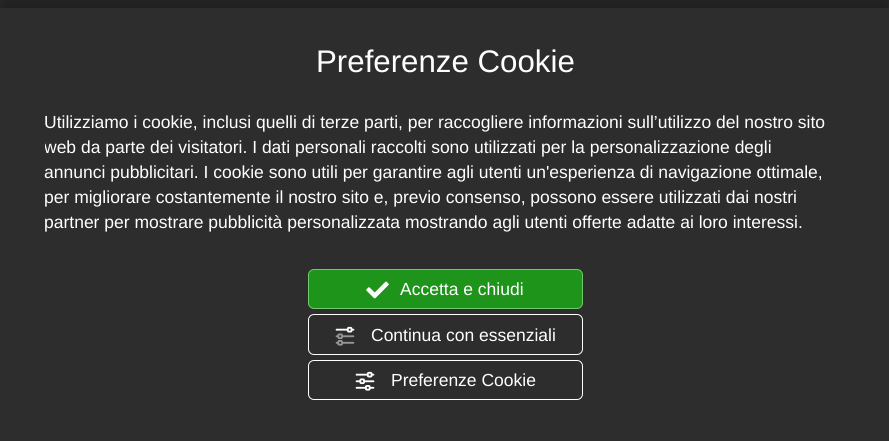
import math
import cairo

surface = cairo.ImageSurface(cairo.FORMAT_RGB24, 889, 441)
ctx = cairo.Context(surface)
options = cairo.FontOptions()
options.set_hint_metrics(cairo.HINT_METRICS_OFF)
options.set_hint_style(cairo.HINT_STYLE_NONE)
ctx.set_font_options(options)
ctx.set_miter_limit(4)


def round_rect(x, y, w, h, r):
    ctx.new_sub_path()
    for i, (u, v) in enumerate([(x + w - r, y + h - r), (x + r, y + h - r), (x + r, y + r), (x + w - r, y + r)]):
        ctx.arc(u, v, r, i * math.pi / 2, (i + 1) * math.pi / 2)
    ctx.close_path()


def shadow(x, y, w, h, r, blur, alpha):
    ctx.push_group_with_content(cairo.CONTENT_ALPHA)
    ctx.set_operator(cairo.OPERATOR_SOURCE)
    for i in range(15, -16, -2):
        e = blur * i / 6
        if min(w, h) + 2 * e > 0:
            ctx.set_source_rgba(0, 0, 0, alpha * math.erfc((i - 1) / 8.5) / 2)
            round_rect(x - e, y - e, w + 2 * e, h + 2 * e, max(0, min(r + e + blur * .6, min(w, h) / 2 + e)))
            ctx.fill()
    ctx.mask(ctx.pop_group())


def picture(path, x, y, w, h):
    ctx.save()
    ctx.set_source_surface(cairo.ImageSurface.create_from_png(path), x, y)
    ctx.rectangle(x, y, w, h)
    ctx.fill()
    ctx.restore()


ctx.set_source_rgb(0.176, 0.176, 0.176)
ctx.paint()
ctx.set_source_rgb(0, 0, 0)
shadow(0, -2, 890, 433, 0, 12.5, 0.38)
ctx.set_source_rgb(0.176, 0.176, 0.176)
ctx.rectangle(0, 8, 889, 433)
ctx.fill()
ctx.select_font_face("Liberation Sans")
ctx.set_font_size(31.25)
ctx.set_source_rgb(1, 1, 1)
ctx.move_to(316, 72)
ctx.show_text("Preferenze Cookie")
ctx.set_font_size(17.5)
ctx.move_to(44, 128)
ctx.show_text("Utilizziamo i cookie, inclusi quelli di terze parti, per raccogliere informazioni sull’utilizzo del nostro sito")
ctx.save()
ctx.rectangle(45, 109, 800, 125)
ctx.clip()
ctx.move_to(44, 153)
ctx.show_text("web da parte dei visitatori. I dati personali raccolti sono utilizzati per la personalizzazione degli")
ctx.restore()
ctx.move_to(44, 178)
ctx.show_text("annunci pubblicitari. I cookie sono utili per garantire agli utenti un'esperienza di navigazione ottimale,")
ctx.move_to(44, 203)
ctx.show_text("per migliorare costantemente il nostro sito e, previo consenso, possono essere utilizzati dai nostri")
ctx.move_to(44, 228)
ctx.show_text("partner per mostrare pubblicità personalizzata mostrando agli utenti offerte adatte ai loro interessi.")
ctx.set_source_rgb(0.118, 0.58, 0.102)
round_rect(308.5, 269.5, 274, 39, 5.5)
ctx.fill_preserve()
ctx.set_source_rgb(0.424, 0.792, 0.412)
ctx.set_line_width(1)
ctx.stroke()
picture("img1.png", 366, 281, 23, 18)
ctx.set_source_rgb(1, 1, 1)
ctx.move_to(400, 295)
ctx.show_text("Accetta e chiudi")
round_rect(308.5, 314.5, 274, 40, 5.5)
ctx.stroke()
picture("img2.png", 335, 326, 20, 20)
ctx.move_to(371, 341)
ctx.show_text("Continua con essenziali")
round_rect(308.5, 360.5, 274, 39, 5.5)
ctx.stroke()
picture("img3.png", 355, 371, 20, 20)
ctx.move_to(391, 386)
ctx.show_text("Preferenze Cookie")
surface.write_to_png("page.png")
